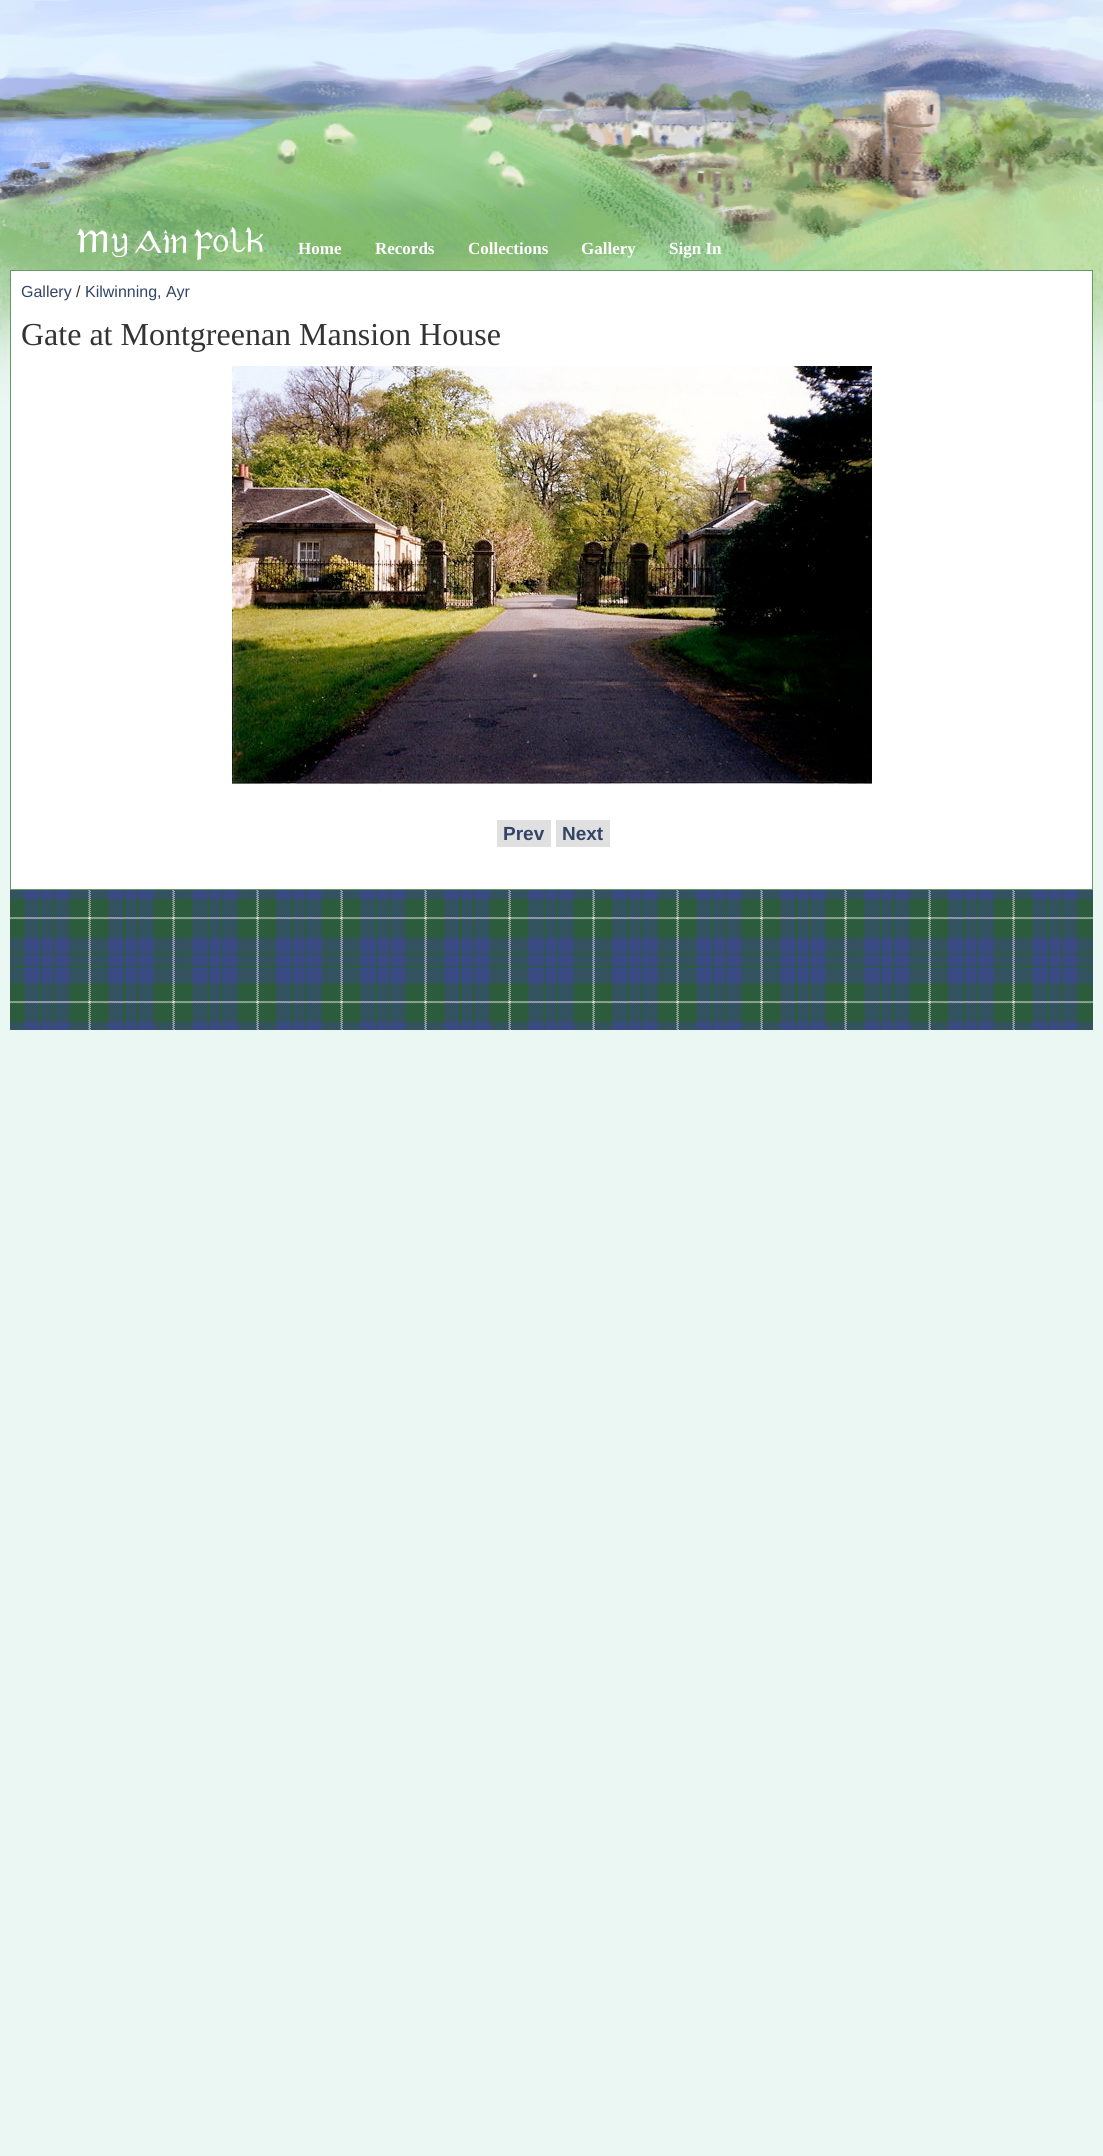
import math
import cairo

surface = cairo.ImageSurface(cairo.FORMAT_RGB24, 1103, 2156)
ctx = cairo.Context(surface)
options = cairo.FontOptions()
options.set_hint_metrics(cairo.HINT_METRICS_OFF)
options.set_hint_style(cairo.HINT_STYLE_NONE)
ctx.set_font_options(options)
ctx.set_miter_limit(4)


def picture(path, x, y, w, h):
    ctx.save()
    ctx.set_source_surface(cairo.ImageSurface.create_from_png(path), x, y)
    ctx.rectangle(x, y, w, h)
    ctx.fill()
    ctx.restore()


ctx.set_source_rgb(0.918, 0.965, 0.949)
ctx.paint()
picture("img1.png", 0, 0, 1103, 402)
picture("img2.png", 77, 227, 187, 33)
ctx.select_font_face("Liberation Serif", cairo.FONT_SLANT_NORMAL, cairo.FONT_WEIGHT_BOLD)
ctx.set_font_size(17)
ctx.set_source_rgb(1, 1, 1)
ctx.move_to(298, 254)
ctx.show_text("Home")
ctx.move_to(375, 254)
ctx.show_text("Records")
ctx.move_to(468, 254)
ctx.show_text("Collections")
ctx.move_to(581, 254)
ctx.show_text("Gallery")
ctx.move_to(669, 254)
ctx.show_text("Sign In")
ctx.rectangle(10.5, 270.5, 1082, 619)
ctx.fill_preserve()
ctx.set_source_rgb(0.396, 0.604, 0.4)
ctx.set_line_width(1)
ctx.stroke()
ctx.select_font_face("Liberation Sans")
ctx.set_font_size(16)
ctx.set_source_rgb(0.2, 0.267, 0.4)
ctx.move_to(21, 297)
ctx.show_text("Gallery")
ctx.set_source_rgb(0.2, 0.2, 0.2)
ctx.move_to(76, 297)
ctx.show_text("/")
ctx.set_source_rgb(0.2, 0.267, 0.4)
ctx.move_to(85, 297)
ctx.show_text("Kilwinning, Ayr")
ctx.select_font_face("Liberation Serif")
ctx.set_font_size(32)
ctx.set_source_rgb(0.2, 0.2, 0.2)
ctx.move_to(21, 345)
ctx.show_text("Gate at Montgreenan Mansion House")
picture("img3.png", 232, 366, 640, 419)
ctx.set_source_rgb(0.878, 0.878, 0.878)
ctx.rectangle(497, 820, 54, 27)
ctx.fill()
ctx.select_font_face("Liberation Sans", cairo.FONT_SLANT_NORMAL, cairo.FONT_WEIGHT_BOLD)
ctx.set_font_size(19)
ctx.set_source_rgb(0.2, 0.267, 0.4)
ctx.move_to(503, 840)
ctx.show_text("Prev")
ctx.set_source_rgb(0.878, 0.878, 0.878)
ctx.rectangle(556, 820, 54, 27)
ctx.fill()
ctx.set_source_rgb(0.2, 0.267, 0.4)
ctx.move_to(562, 840)
ctx.show_text("Next")
picture("img4.png", 10, 890, 1083, 140)
surface.write_to_png("page.png")
